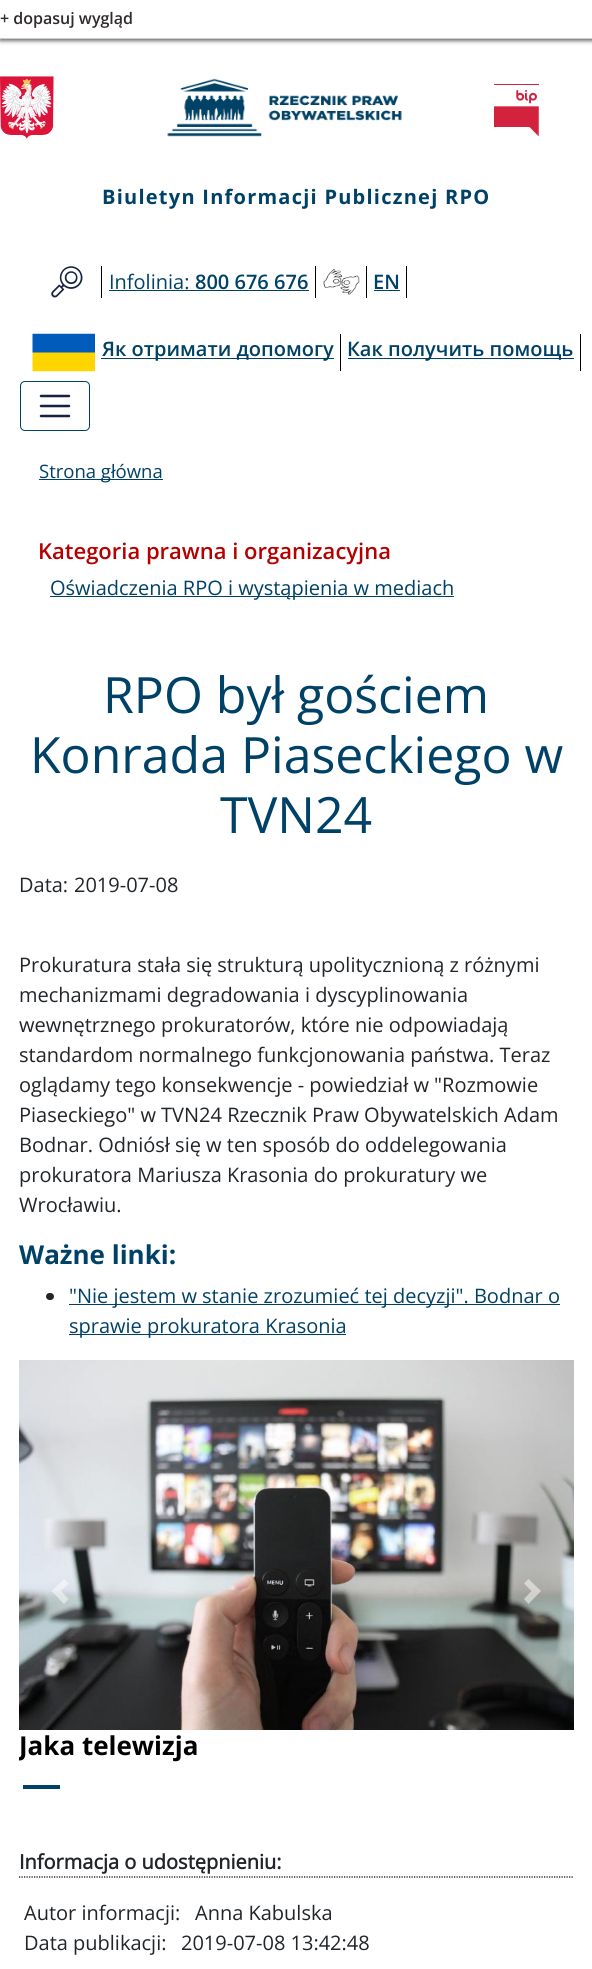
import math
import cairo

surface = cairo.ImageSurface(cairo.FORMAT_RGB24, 592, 1969)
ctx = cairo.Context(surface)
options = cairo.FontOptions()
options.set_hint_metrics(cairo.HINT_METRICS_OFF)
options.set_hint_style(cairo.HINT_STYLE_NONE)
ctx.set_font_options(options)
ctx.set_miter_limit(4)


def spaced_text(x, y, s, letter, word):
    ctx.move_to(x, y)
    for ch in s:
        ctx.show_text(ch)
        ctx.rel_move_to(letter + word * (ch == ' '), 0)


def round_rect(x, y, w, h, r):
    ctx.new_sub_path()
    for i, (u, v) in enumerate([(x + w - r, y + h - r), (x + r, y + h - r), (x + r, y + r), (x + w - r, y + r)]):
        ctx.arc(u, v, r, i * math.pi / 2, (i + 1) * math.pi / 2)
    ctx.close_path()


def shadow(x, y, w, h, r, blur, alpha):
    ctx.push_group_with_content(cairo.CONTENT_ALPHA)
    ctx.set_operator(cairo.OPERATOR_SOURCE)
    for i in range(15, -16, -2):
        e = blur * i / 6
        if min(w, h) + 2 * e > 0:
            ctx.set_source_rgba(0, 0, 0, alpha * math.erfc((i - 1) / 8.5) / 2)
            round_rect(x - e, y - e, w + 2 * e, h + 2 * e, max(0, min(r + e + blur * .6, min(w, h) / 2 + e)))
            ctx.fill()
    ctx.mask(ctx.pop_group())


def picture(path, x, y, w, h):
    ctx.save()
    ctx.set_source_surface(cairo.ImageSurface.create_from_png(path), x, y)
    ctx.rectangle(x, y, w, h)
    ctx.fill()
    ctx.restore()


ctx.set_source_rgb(1, 1, 1)
ctx.paint()
ctx.set_source_rgb(0.435, 0.435, 0.435)
shadow(0, 3, 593, 38, 0, 2, 1)
ctx.set_source_rgb(1, 1, 1)
ctx.rectangle(0, 0, 592, 38)
ctx.fill()
ctx.set_source_rgb(0.8, 0.8, 0.8)
ctx.rectangle(0, 38, 592, 1)
ctx.fill()
ctx.select_font_face("Open Sans SemiBold")
ctx.set_font_size(16)
ctx.set_source_rgb(0.184, 0.169, 0.165)
ctx.move_to(0, 24)
ctx.show_text("+ dopasuj wygląd")
picture("img1.png", 0, 76, 54, 63)
picture("img2.png", 167, 78, 235, 59)
picture("img3.png", 494, 84, 45, 53)
ctx.select_font_face("Open Sans", cairo.FONT_SLANT_NORMAL, cairo.FONT_WEIGHT_BOLD)
ctx.set_font_size(20)
ctx.set_source_rgb(0, 0.255, 0.404)
spaced_text(102, 204, "Biuletyn Informacji Publicznej RPO", 1.25, 0)
ctx.set_source_rgb(0, 0, 0)
ctx.rectangle(101, 266, 1, 32)
ctx.fill()
picture("img4.png", 51, 266, 32, 32)
ctx.rectangle(315, 266, 1, 32)
ctx.fill()
ctx.select_font_face("Open Sans")
ctx.set_source_rgb(0, 0.255, 0.404)
ctx.move_to(109, 289)
ctx.show_text("Infolinia:")
ctx.rectangle(109, 290, 200, 1)
ctx.fill()
ctx.select_font_face("Open Sans SemiBold")
ctx.move_to(195, 289)
ctx.show_text("800 676 676")
ctx.set_source_rgb(0, 0, 0)
ctx.rectangle(366, 266, 1, 32)
ctx.fill()
picture("img5.png", 323, 269, 37, 26)
ctx.rectangle(406, 266, 1, 32)
ctx.fill()
ctx.set_source_rgb(0, 0.255, 0.404)
ctx.move_to(373, 289)
ctx.show_text("EN")
ctx.rectangle(374, 290, 26, 1)
ctx.fill()
picture("img6.png", 32, 333, 63, 39)
ctx.set_source_rgb(0, 0, 0)
ctx.rectangle(340, 334, 1, 37)
ctx.fill()
ctx.set_source_rgb(0, 0.255, 0.404)
ctx.rectangle(101, 358, 233, 1)
ctx.fill()
ctx.move_to(102, 356)
ctx.show_text("Як отримати допомогу")
ctx.set_source_rgb(0, 0, 0)
ctx.rectangle(580, 334, 1, 37)
ctx.fill()
ctx.set_source_rgb(0, 0.255, 0.404)
ctx.rectangle(348, 358, 226, 1)
ctx.fill()
ctx.move_to(347, 356)
ctx.show_text("Как получить помощь")
round_rect(20.5, 381.5, 69, 49, 4.5)
ctx.set_line_width(1)
ctx.stroke()
ctx.new_path()
ctx.move_to(41, 396)
ctx.line_to(69, 396)
ctx.move_to(41, 406)
ctx.line_to(69, 406)
ctx.move_to(41, 416)
ctx.line_to(69, 416)
ctx.set_source_rgb(0.094, 0.133, 0.243)
ctx.set_line_width(2.5)
ctx.set_line_cap(cairo.LINE_CAP_ROUND)
ctx.stroke()
ctx.set_source_rgb(0, 0.255, 0.404)
ctx.rectangle(39, 479, 124, 1)
ctx.fill()
ctx.select_font_face("Open Sans")
ctx.set_font_size(18.5)
ctx.move_to(39, 478)
ctx.show_text("Strona główna")
ctx.select_font_face("Open Sans SemiBold")
ctx.set_font_size(22)
ctx.set_source_rgb(0.714, 0, 0)
ctx.move_to(38, 559)
ctx.show_text("Kategoria prawna i organizacyjna")
ctx.set_source_rgb(0, 0.255, 0.404)
ctx.rectangle(50, 596, 404, 1)
ctx.fill()
ctx.select_font_face("Open Sans")
ctx.set_font_size(20)
ctx.move_to(50, 595)
ctx.show_text("Oświadczenia RPO i wystąpienia w mediach")
ctx.set_font_size(50)
ctx.move_to(103, 713)
ctx.show_text("RPO był gościem")
ctx.move_to(30, 773)
ctx.show_text("Konrada Piaseckiego w")
ctx.move_to(220, 833)
ctx.show_text("TVN24")
ctx.set_font_size(20)
ctx.set_source_rgb(0.129, 0.145, 0.161)
ctx.move_to(19, 892)
ctx.show_text("Data:")
ctx.move_to(74, 892)
ctx.show_text("2019-07-08")
ctx.move_to(19, 972)
ctx.show_text("Prokuratura stała się strukturą upolitycznioną z różnymi")
ctx.move_to(19, 1002)
ctx.show_text("mechanizmami degradowania i dyscyplinowania")
ctx.move_to(19, 1032)
ctx.show_text("wewnętrznego prokuratorów, które nie odpowiadają")
ctx.move_to(19, 1062)
ctx.show_text("standardom normalnego funkcjonowania państwa. Teraz")
ctx.move_to(19, 1092)
ctx.show_text("oglądamy tego konsekwencje - powiedział w \"Rozmowie")
ctx.move_to(19, 1122)
ctx.show_text("Piaseckiego\" w TVN24 Rzecznik Praw Obywatelskich Adam")
ctx.move_to(19, 1152)
ctx.show_text("Bodnar. Odniósł się w ten sposób do oddelegowania")
ctx.move_to(19, 1182)
ctx.show_text("prokuratora Mariusza Krasonia do prokuratury we")
ctx.move_to(19, 1212)
ctx.show_text("Wrocławiu.")
ctx.select_font_face("Open Sans", cairo.FONT_SLANT_NORMAL, cairo.FONT_WEIGHT_BOLD)
ctx.set_font_size(26)
ctx.set_source_rgb(0, 0.255, 0.404)
ctx.move_to(19, 1264)
ctx.show_text("Ważne linki:")
ctx.set_source_rgb(0.129, 0.145, 0.161)
round_rect(46, 1293, 8, 7, 3.5)
ctx.fill()
ctx.set_source_rgb(0, 0.255, 0.404)
ctx.rectangle(69, 1304, 491, 1)
ctx.fill()
ctx.select_font_face("Open Sans")
ctx.set_font_size(20)
ctx.move_to(69, 1303)
ctx.show_text("\"Nie jestem w stanie zrozumieć tej decyzji\". Bodnar o")
ctx.rectangle(69, 1334, 277, 1)
ctx.fill()
ctx.move_to(69, 1333)
ctx.show_text("sprawie prokuratora Krasonia")
picture("img7.png", 19, 1360, 555, 370)
ctx.set_source_rgba(1, 1, 1, 0.5)
ctx.new_path()
ctx.move_to(64, 1579)
ctx.line_to(51.5, 1591)
ctx.line_to(64, 1604)
ctx.line_to(68.5, 1599)
ctx.line_to(61, 1591)
ctx.line_to(68.5, 1583.5)
ctx.close_path()
ctx.fill()
ctx.new_path()
ctx.move_to(528.5, 1579)
ctx.line_to(524, 1583.5)
ctx.line_to(531.5, 1591)
ctx.line_to(524, 1599)
ctx.line_to(528.5, 1604)
ctx.line_to(541, 1591)
ctx.close_path()
ctx.fill()
ctx.save()
ctx.rectangle(19, 1360, 555, 461)
ctx.clip()
ctx.select_font_face("Open Sans", cairo.FONT_SLANT_NORMAL, cairo.FONT_WEIGHT_BOLD)
ctx.set_font_size(26)
ctx.set_source_rgb(0, 0, 0)
ctx.move_to(19, 1755)
ctx.show_text("Jaka telewizja")
ctx.restore()
ctx.set_source_rgb(0, 0.255, 0.404)
ctx.rectangle(23, 1785, 37, 4)
ctx.fill()
ctx.new_path()
ctx.move_to(19, 1877)
ctx.line_to(574, 1877)
ctx.set_source_rgb(0, 0, 0)
ctx.set_line_width(1.2)
ctx.set_line_cap(cairo.LINE_CAP_BUTT)
ctx.set_dash([1.25, 1.25])
ctx.stroke()
ctx.select_font_face("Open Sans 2", cairo.FONT_SLANT_NORMAL, cairo.FONT_WEIGHT_BOLD)
ctx.set_source_rgb(0.129, 0.145, 0.161)
ctx.move_to(19, 1869)
ctx.show_text("Informacja o udostępnieniu:")
ctx.select_font_face("Open Sans")
ctx.move_to(24, 1920)
ctx.show_text("Autor informacji:")
ctx.move_to(195, 1920)
ctx.show_text("Anna Kabulska")
ctx.move_to(24, 1950)
ctx.show_text("Data publikacji:")
ctx.move_to(181, 1950)
ctx.show_text("2019-07-08 13:42:48")
surface.write_to_png("page.png")
